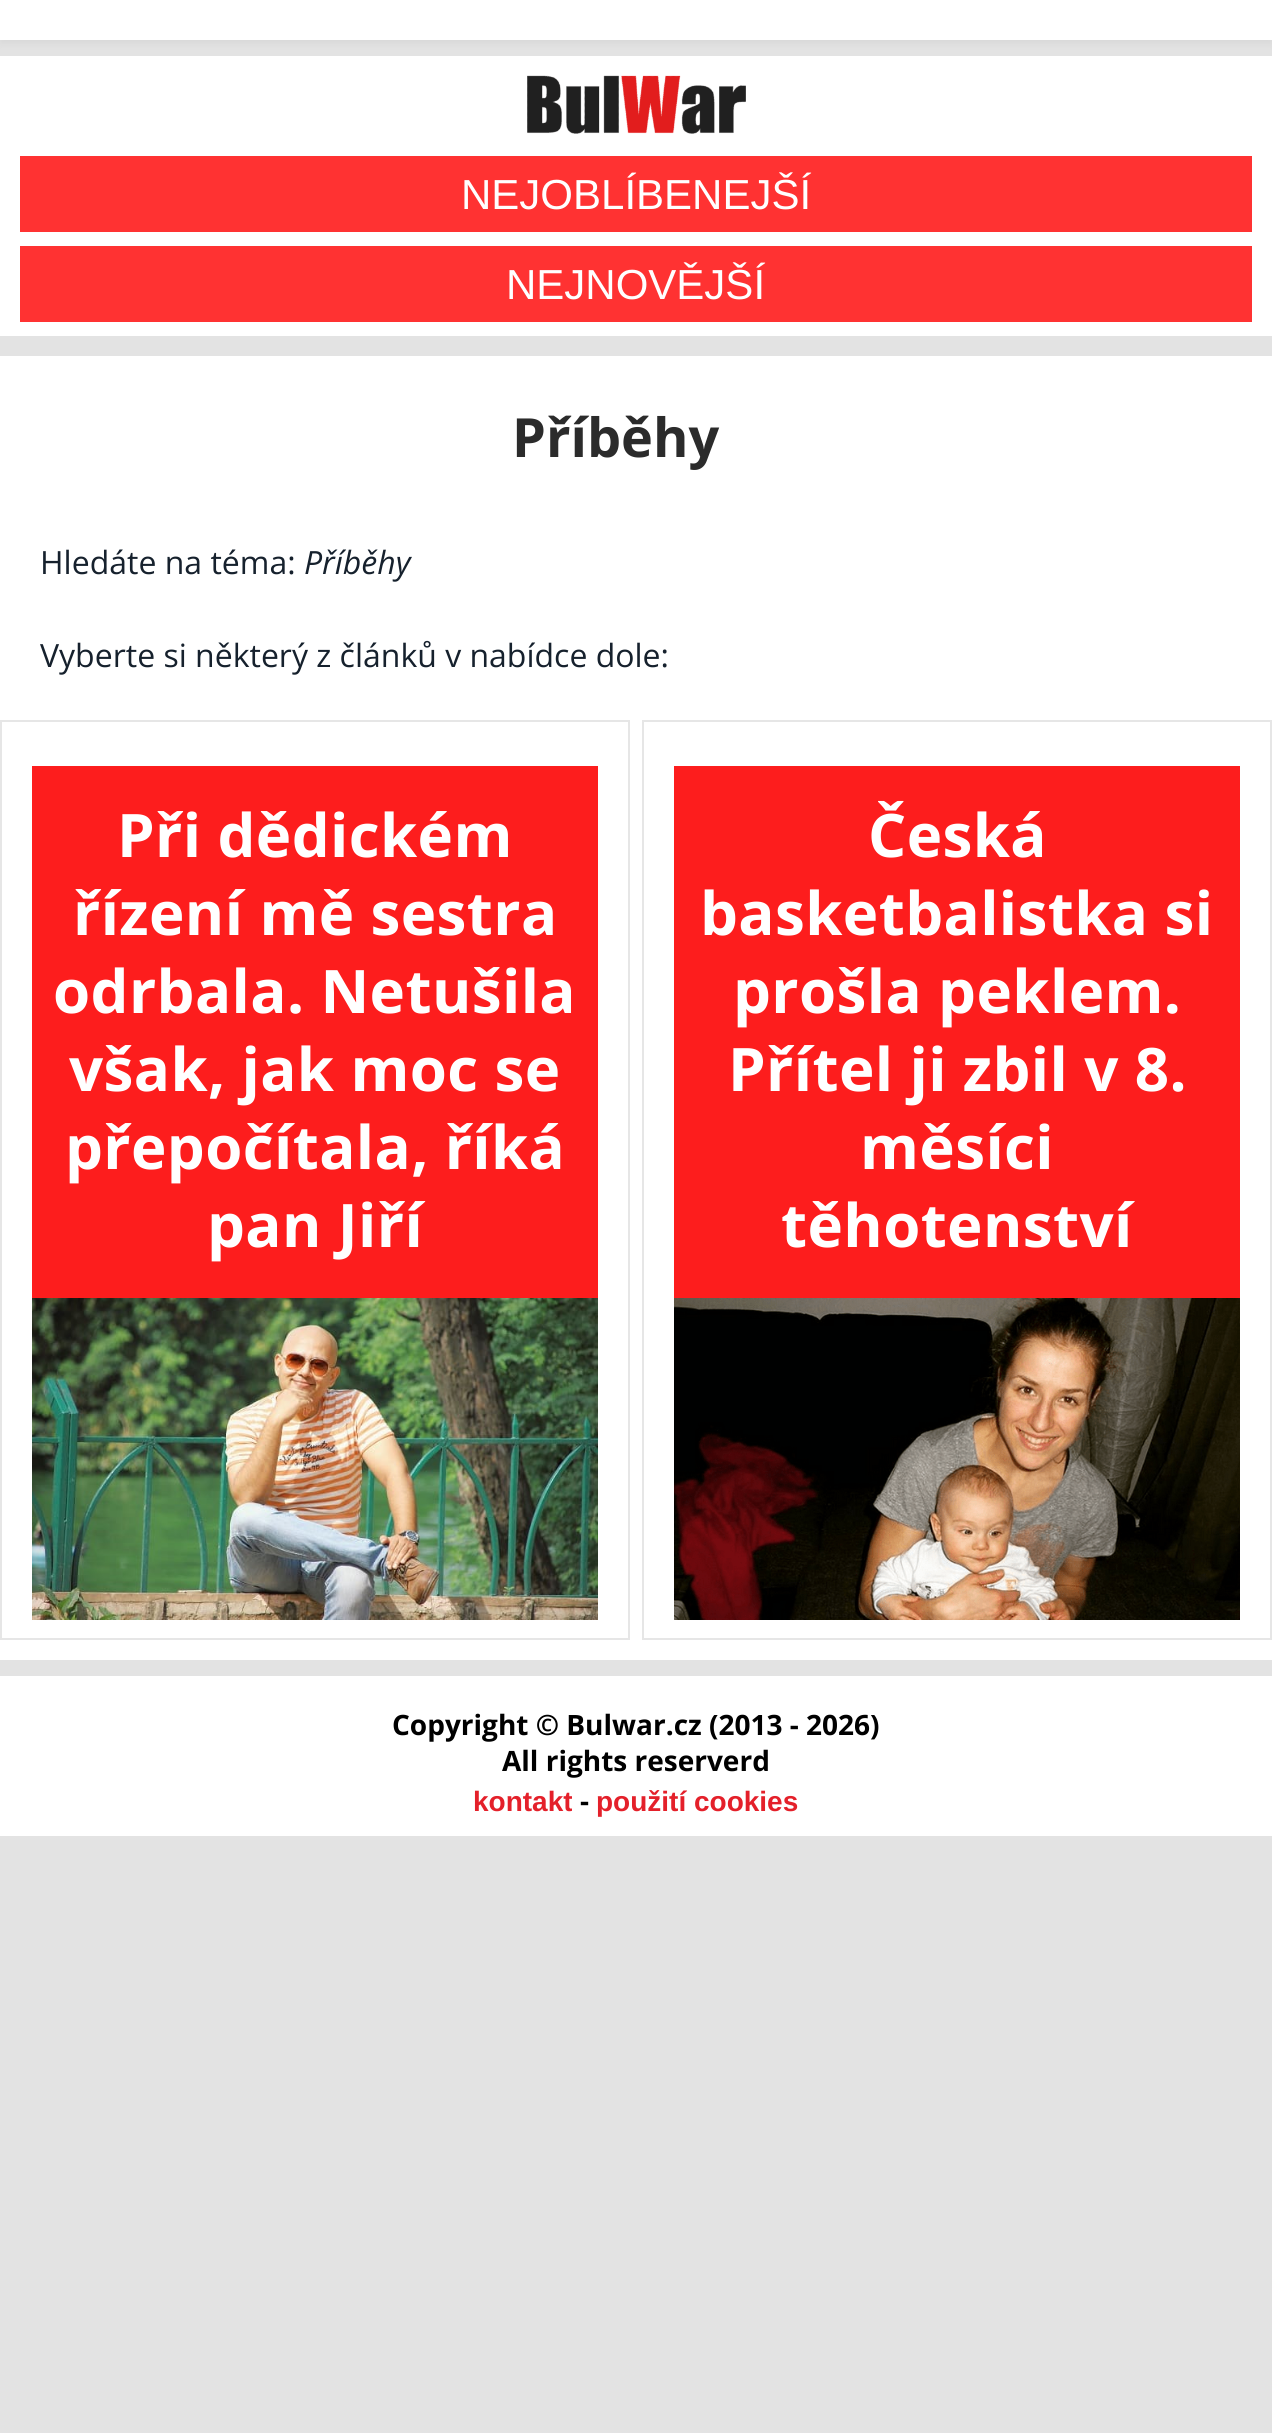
import math
import cairo

surface = cairo.ImageSurface(cairo.FORMAT_RGB24, 1272, 2433)
ctx = cairo.Context(surface)
options = cairo.FontOptions()
options.set_hint_metrics(cairo.HINT_METRICS_OFF)
options.set_hint_style(cairo.HINT_STYLE_NONE)
ctx.set_font_options(options)
ctx.set_miter_limit(4)


def spaced_text(x, y, s, letter, word):
    ctx.move_to(x, y)
    for ch in s:
        ctx.show_text(ch)
        ctx.rel_move_to(letter + word * (ch == ' '), 0)


def round_rect(x, y, w, h, r):
    ctx.new_sub_path()
    for i, (u, v) in enumerate([(x + w - r, y + h - r), (x + r, y + h - r), (x + r, y + r), (x + w - r, y + r)]):
        ctx.arc(u, v, r, i * math.pi / 2, (i + 1) * math.pi / 2)
    ctx.close_path()


def shadow(x, y, w, h, r, blur, alpha):
    ctx.push_group_with_content(cairo.CONTENT_ALPHA)
    ctx.set_operator(cairo.OPERATOR_SOURCE)
    for i in range(15, -16, -2):
        e = blur * i / 6
        if min(w, h) + 2 * e > 0:
            ctx.set_source_rgba(0, 0, 0, alpha * math.erfc((i - 1) / 8.5) / 2)
            round_rect(x - e, y - e, w + 2 * e, h + 2 * e, max(0, min(r + e + blur * .6, min(w, h) / 2 + e)))
            ctx.fill()
    ctx.mask(ctx.pop_group())


def picture(path, x, y, w, h):
    ctx.save()
    ctx.set_source_surface(cairo.ImageSurface.create_from_png(path), x, y)
    ctx.rectangle(x, y, w, h)
    ctx.fill()
    ctx.restore()


ctx.set_source_rgb(0.89, 0.89, 0.89)
ctx.paint()
ctx.set_source_rgb(1, 1, 1)
ctx.rectangle(0, 56, 1272, 280)
ctx.fill()
ctx.set_source_rgb(0, 0, 0)
shadow(0, 4, 1272, 40, 0, 4, 0.05)
ctx.set_source_rgb(1, 1, 1)
ctx.rectangle(0, 0, 1272, 40)
ctx.fill()
picture("img1.png", 527, 75, 219, 59)
ctx.set_source_rgb(1, 0.196, 0.196)
ctx.rectangle(20, 156, 1232, 76)
ctx.fill()
ctx.select_font_face("Liberation Sans")
ctx.set_font_size(42)
ctx.set_source_rgb(1, 1, 1)
ctx.move_to(461, 209)
ctx.show_text("NEJOBLÍBENEJŠÍ")
ctx.set_source_rgb(1, 0.196, 0.196)
ctx.rectangle(20, 246, 1232, 76)
ctx.fill()
ctx.set_source_rgb(1, 1, 1)
ctx.move_to(506, 299)
ctx.show_text("NEJNOVĚJŠÍ")
ctx.rectangle(0, 356, 1272, 1304)
ctx.fill()
ctx.select_font_face("Open Sans", cairo.FONT_SLANT_NORMAL, cairo.FONT_WEIGHT_BOLD)
ctx.set_font_size(54)
ctx.set_source_rgb(0.169, 0.169, 0.169)
ctx.move_to(512, 457)
ctx.show_text("Příběhy")
ctx.select_font_face("Open Sans")
ctx.set_font_size(32)
ctx.set_source_rgb(0.086, 0.129, 0.176)
ctx.move_to(40, 574)
ctx.show_text("Hledáte na téma:")
ctx.select_font_face("Open Sans", cairo.FONT_SLANT_ITALIC)
ctx.move_to(304, 574)
ctx.show_text("Příběhy")
ctx.select_font_face("Open Sans")
ctx.move_to(40, 667)
ctx.show_text("Vyberte si některý z článků v nabídce dole:")
ctx.rectangle(1, 721, 628, 918)
ctx.set_source_rgb(0.902, 0.902, 0.902)
ctx.stroke()
ctx.set_source_rgb(0.992, 0.114, 0.114)
ctx.rectangle(32, 766, 566, 532)
ctx.fill()
ctx.select_font_face("Open Sans", cairo.FONT_SLANT_NORMAL, cairo.FONT_WEIGHT_BOLD)
ctx.set_font_size(60)
ctx.set_source_rgb(1, 1, 1)
spaced_text(117, 857, "Při dědickém", 0.4, 0)
spaced_text(73, 935, "řízení mě sestra", 0.4, 0)
spaced_text(53, 1013, "odrbala. Netušila", 0.4, 0)
spaced_text(69, 1091, "však, jak moc se", 0.4, 0)
spaced_text(65, 1169, "přepočítala, říká", 0.4, 0)
spaced_text(207, 1247, "pan Jiří", 0.4, 0)
picture("img2.png", 32, 1298, 566, 322)
ctx.rectangle(643, 721, 628, 918)
ctx.set_source_rgb(0.902, 0.902, 0.902)
ctx.stroke()
ctx.set_source_rgb(0.992, 0.114, 0.114)
ctx.rectangle(674, 766, 566, 532)
ctx.fill()
ctx.set_source_rgb(1, 1, 1)
spaced_text(868, 857, "Česká", 0.4, 0)
spaced_text(700, 935, "basketbalistka si", 0.4, 0)
spaced_text(733, 1013, "prošla peklem.", 0.4, 0)
spaced_text(728, 1091, "Přítel ji zbil v 8.", 0.4, 0)
spaced_text(860, 1169, "měsíci", 0.4, 0)
spaced_text(781, 1247, "těhotenství", 0.4, 0)
picture("img3.png", 674, 1298, 566, 322)
ctx.rectangle(0, 1676, 1272, 160)
ctx.fill()
ctx.set_font_size(28)
ctx.set_source_rgb(0, 0, 0)
ctx.move_to(392, 1735)
ctx.show_text("Copyright © Bulwar.cz (2013 - 2026)")
ctx.move_to(502, 1771)
ctx.show_text("All rights reserverd")
ctx.select_font_face("Liberation Sans", cairo.FONT_SLANT_NORMAL, cairo.FONT_WEIGHT_BOLD)
ctx.set_source_rgb(0.894, 0.125, 0.165)
ctx.move_to(473, 1811)
ctx.show_text("kontakt")
ctx.select_font_face("Open Sans", cairo.FONT_SLANT_NORMAL, cairo.FONT_WEIGHT_BOLD)
ctx.set_source_rgb(0, 0, 0)
ctx.move_to(580, 1811)
ctx.show_text("-")
ctx.select_font_face("Liberation Sans", cairo.FONT_SLANT_NORMAL, cairo.FONT_WEIGHT_BOLD)
ctx.set_source_rgb(0.894, 0.125, 0.165)
ctx.move_to(596, 1811)
ctx.show_text("použití cookies")
surface.write_to_png("page.png")
